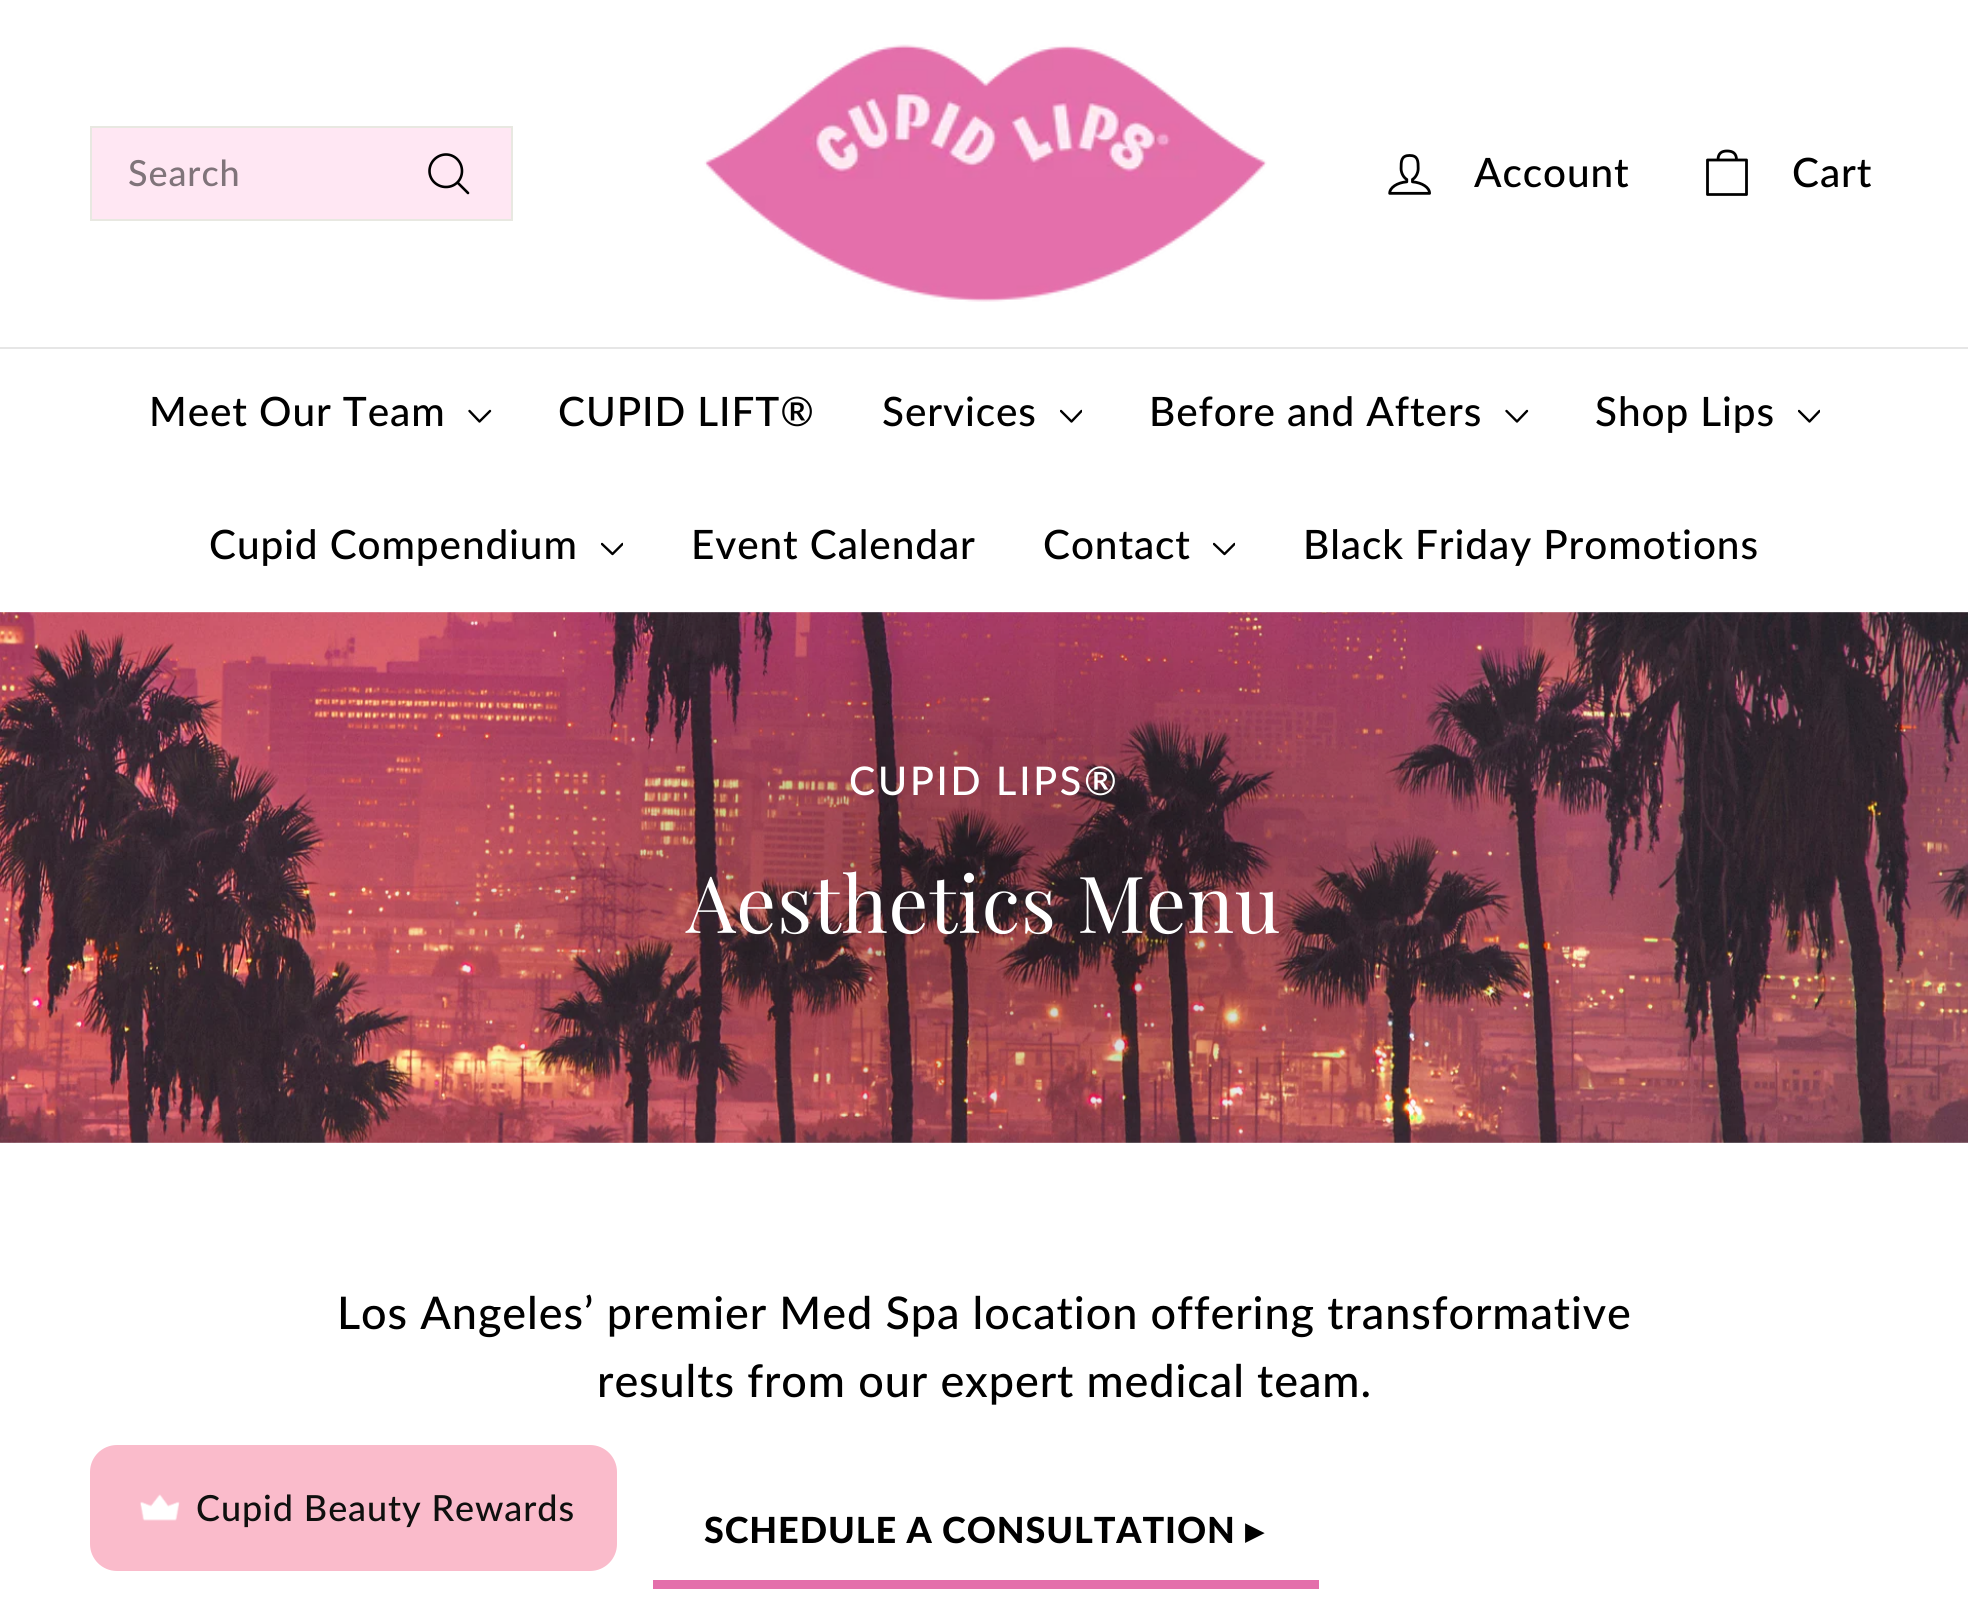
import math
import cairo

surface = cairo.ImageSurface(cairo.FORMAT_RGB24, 1968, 1623)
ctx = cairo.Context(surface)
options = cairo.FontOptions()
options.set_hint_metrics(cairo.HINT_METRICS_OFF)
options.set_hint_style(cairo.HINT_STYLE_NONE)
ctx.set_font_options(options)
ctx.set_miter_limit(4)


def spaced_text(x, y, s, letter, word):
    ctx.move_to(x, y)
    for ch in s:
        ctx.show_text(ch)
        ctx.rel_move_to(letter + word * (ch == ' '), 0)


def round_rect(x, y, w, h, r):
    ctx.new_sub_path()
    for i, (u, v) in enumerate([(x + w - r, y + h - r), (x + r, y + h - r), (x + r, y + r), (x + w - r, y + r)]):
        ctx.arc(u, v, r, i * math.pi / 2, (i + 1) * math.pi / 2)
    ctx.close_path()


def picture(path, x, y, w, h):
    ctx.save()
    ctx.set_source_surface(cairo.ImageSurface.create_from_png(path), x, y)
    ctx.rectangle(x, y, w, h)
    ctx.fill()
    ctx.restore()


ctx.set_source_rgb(1, 1, 1)
ctx.paint()
ctx.set_source_rgb(1, 0.906, 0.953)
ctx.rectangle(91, 127, 421, 93)
ctx.fill_preserve()
ctx.set_source_rgb(0.91, 0.91, 0.882)
ctx.stroke()
ctx.select_font_face("Lato Medium")
ctx.set_font_size(36)
ctx.set_source_rgb(0.502, 0.455, 0.478)
spaced_text(128, 186, "Search", 0.9, 0)
ctx.new_path()
ctx.move_to(462, 171)
ctx.curve_to(462, 180, 455, 187, 446, 187)
ctx.curve_to(437, 187, 429.5, 180, 429.5, 171)
ctx.curve_to(429.5, 162, 437, 154.5, 446, 154.5)
ctx.curve_to(455, 154.5, 462, 162, 462, 171)
ctx.close_path()
ctx.move_to(468, 193)
ctx.line_to(457.5, 182.5)
ctx.set_source_rgb(0, 0, 0)
ctx.set_line_width(2.6)
ctx.set_line_cap(cairo.LINE_CAP_ROUND)
ctx.set_line_join(cairo.LINE_JOIN_ROUND)
ctx.stroke()
picture("img1.png", 704, 44, 563, 258)
picture("img2.png", 1388, 154, 43, 41)
ctx.set_font_size(40.5)
spaced_text(1474, 187, "Account", 0.9, 0)
ctx.new_path()
ctx.move_to(1718, 160)
ctx.curve_to(1718, 153, 1722, 151, 1727, 151)
ctx.curve_to(1732.5, 151, 1736.5, 153, 1736.5, 160)
ctx.move_to(1707.5, 160)
ctx.line_to(1746.5, 160)
ctx.line_to(1746.5, 194.5)
ctx.line_to(1707.5, 194.5)
ctx.close_path()
ctx.set_line_width(2.8)
ctx.stroke()
spaced_text(1792, 187, "Cart", 0.9, 0)
ctx.set_source_rgb(0.902, 0.902, 0.902)
ctx.rectangle(0, 347, 1968, 2)
ctx.fill()
ctx.set_source_rgb(0, 0, 0)
spaced_text(149, 426, "Meet Our Team", 0.9, 0)
ctx.new_path()
ctx.move_to(469.5, 411)
ctx.line_to(479.5, 421.5)
ctx.line_to(490, 411)
ctx.set_line_width(2.4)
ctx.stroke()
spaced_text(558, 426, "CUPID LIFT®", 0.9, 0)
spaced_text(882, 426, "Services", 0.9, 0)
ctx.save()
ctx.rectangle(1060, 405, 22, 23)
ctx.clip()
ctx.new_path()
ctx.move_to(1061, 411)
ctx.line_to(1071.5, 421.5)
ctx.line_to(1081.5, 411)
ctx.stroke()
ctx.restore()
spaced_text(1149, 426, "Before and Afters", 0.9, 0)
ctx.new_path()
ctx.move_to(1506.5, 411)
ctx.line_to(1517, 421.5)
ctx.line_to(1527, 411)
ctx.stroke()
spaced_text(1595, 426, "Shop Lips", 0.9, 0)
ctx.save()
ctx.rectangle(1798, 405, 22, 23)
ctx.clip()
ctx.new_path()
ctx.move_to(1799, 411)
ctx.line_to(1809.5, 421.5)
ctx.line_to(1819.5, 411)
ctx.stroke()
ctx.restore()
spaced_text(209, 559, "Cupid Compendium", 0.9, 0)
ctx.save()
ctx.rectangle(601, 538, 22, 22)
ctx.clip()
ctx.new_path()
ctx.move_to(602, 544)
ctx.line_to(612.5, 554)
ctx.line_to(622.5, 544)
ctx.stroke()
ctx.restore()
spaced_text(691, 559, "Event Calendar", 0.9, 0)
spaced_text(1043, 559, "Contact", 0.9, 0)
ctx.save()
ctx.rectangle(1213, 538, 22, 22)
ctx.clip()
ctx.new_path()
ctx.move_to(1214, 544)
ctx.line_to(1224.5, 554)
ctx.line_to(1234.5, 544)
ctx.stroke()
ctx.restore()
spaced_text(1303, 559, "Black Friday Promotions", 0.9, 0)
picture("img3.png", 0, 612, 1968, 531)
gradient = cairo.RadialGradient(0, 0, 0, 0, 0, 1)
gradient.set_matrix(cairo.Matrix(1 / 1058, 0, 0, 1 / 495, -1 * 984 / 1058, -1 * 876 / 495))
gradient.add_color_stop_rgba(0, 0, 0, 0, 0.3)
gradient.add_color_stop_rgba(0.6, 0, 0, 0, 0)
ctx.set_source(gradient)
ctx.rectangle(395, 612, 1178, 531)
ctx.fill()
ctx.set_font_size(39.5)
ctx.set_source_rgb(1, 1, 1)
spaced_text(849, 795, "CUPID LIPS®", 2.75, 0)
ctx.select_font_face("Playfair Display")
ctx.set_font_size(78.75)
spaced_text(686, 933, "Aesthetics Menu", 0.75, 0)
ctx.select_font_face("Lato Medium")
ctx.set_font_size(45)
ctx.set_source_rgb(0, 0, 0)
spaced_text(337, 1329, "Los Angeles’ premier Med Spa location offering transformative", 0.9, 0)
spaced_text(597, 1397, "results from our expert medical team.", 0.9, 0)
ctx.set_source_rgb(0.894, 0.435, 0.671)
ctx.rectangle(653, 1580, 666, 9)
ctx.fill()
ctx.select_font_face("Lato Black")
ctx.set_font_size(36)
ctx.set_source_rgb(0, 0, 0)
spaced_text(704, 1543, "SCHEDULE A CONSULTATION", 0.9, 0)
ctx.select_font_face("DejaVu Sans", cairo.FONT_SLANT_NORMAL, cairo.FONT_WEIGHT_BOLD)
spaced_text(1245, 1543, "▸", 0.9, 0)
ctx.set_source_rgb(0.98, 0.733, 0.796)
round_rect(90, 1445, 527, 126, 27)
ctx.fill()
picture("img4.png", 140, 1494, 40, 27)
ctx.select_font_face("Lato Medium")
ctx.set_source_rgb(0.059, 0.063, 0.059)
spaced_text(196, 1521, "Cupid Beauty Rewards", 0.9, 0)
surface.write_to_png("page.png")
